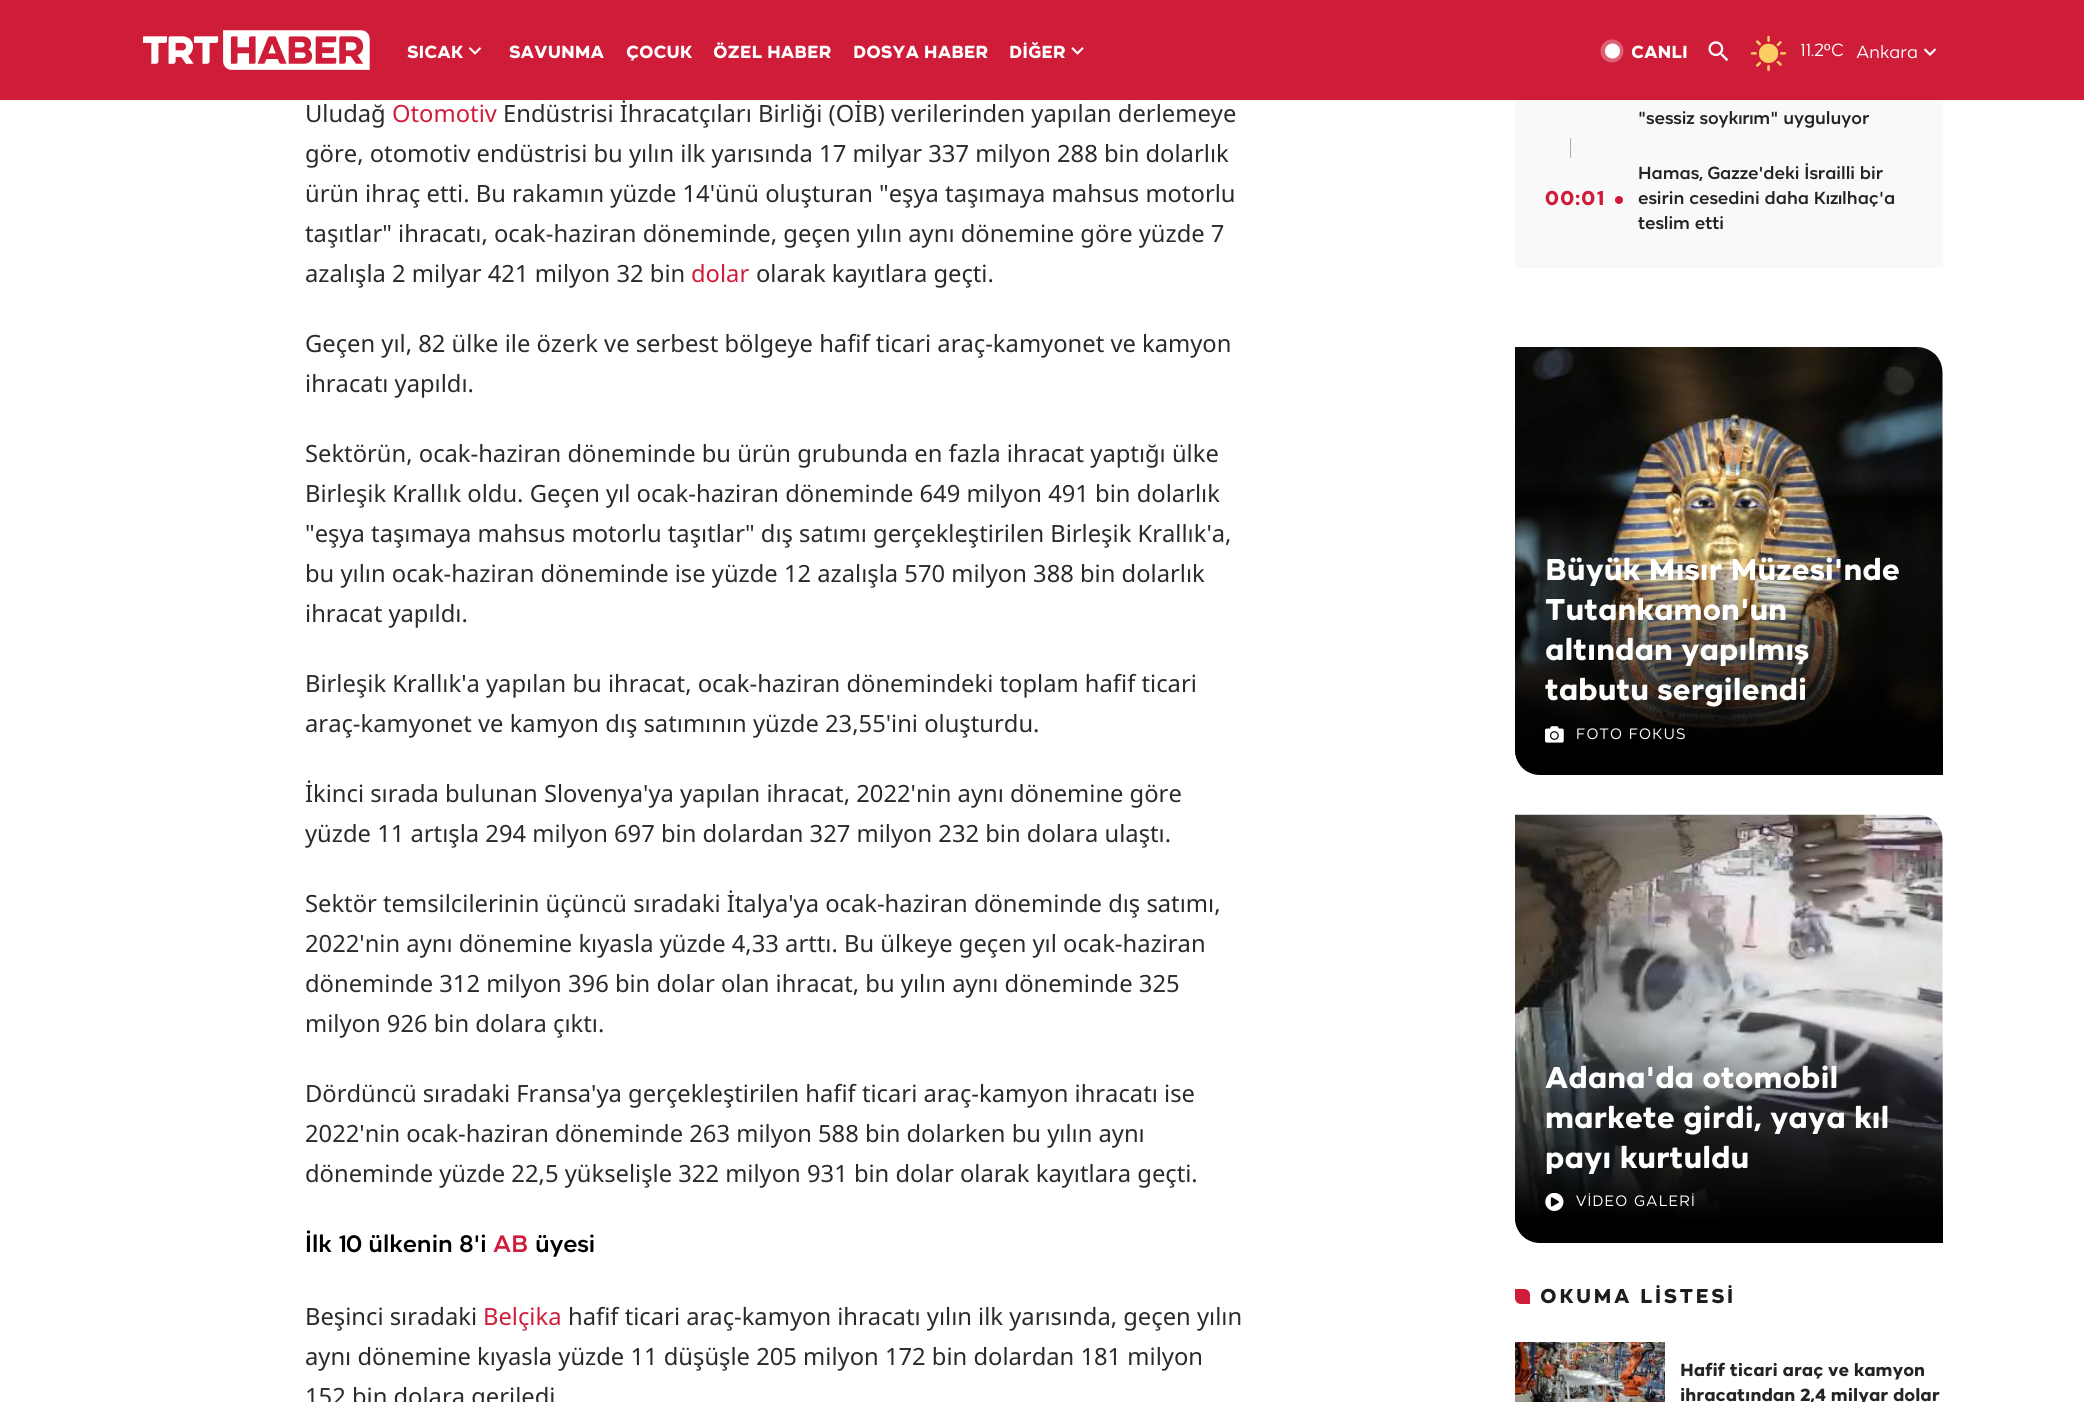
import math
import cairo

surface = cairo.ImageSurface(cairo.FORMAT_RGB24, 2084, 1402)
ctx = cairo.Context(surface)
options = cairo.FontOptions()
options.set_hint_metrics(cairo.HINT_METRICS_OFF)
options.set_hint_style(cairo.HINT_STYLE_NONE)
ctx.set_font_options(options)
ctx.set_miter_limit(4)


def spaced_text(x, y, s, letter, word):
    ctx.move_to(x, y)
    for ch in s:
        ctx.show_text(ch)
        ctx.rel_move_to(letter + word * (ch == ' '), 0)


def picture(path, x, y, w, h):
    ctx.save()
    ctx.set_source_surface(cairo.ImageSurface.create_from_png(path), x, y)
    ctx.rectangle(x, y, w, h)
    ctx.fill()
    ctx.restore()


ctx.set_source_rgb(1, 1, 1)
ctx.paint()
ctx.set_source_rgb(0.812, 0.114, 0.224)
ctx.rectangle(0, 0, 2084, 100)
ctx.fill()
picture("img1.png", 143, 30, 227, 40)
ctx.select_font_face("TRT", cairo.FONT_SLANT_NORMAL, cairo.FONT_WEIGHT_BOLD)
ctx.set_font_size(17.5)
ctx.set_source_rgb(1, 1, 1)
ctx.move_to(407, 58)
ctx.show_text("SICAK")
picture("img2.png", 468, 47, 14, 8)
ctx.move_to(509, 58)
ctx.show_text("SAVUNMA")
ctx.move_to(626, 58)
ctx.show_text("ÇOCUK")
ctx.move_to(713, 58)
ctx.show_text("ÖZEL HABER")
ctx.move_to(853, 58)
ctx.show_text("DOSYA HABER")
ctx.move_to(1009, 58)
ctx.show_text("DİĞER")
picture("img3.png", 1071, 47, 13, 8)
ctx.set_source_rgb(0.867, 0.38, 0.455)
ctx.arc(1612, 51, 11.5, 0, 2 * math.pi)
ctx.fill()
ctx.set_source_rgb(1, 1, 1)
ctx.arc(1612.5, 51, 7.5, 0, 2 * math.pi)
ctx.fill()
ctx.move_to(1631, 58)
ctx.show_text("CANLI")
picture("img4.png", 1708, 41, 21, 21)
picture("img5.png", 1750, 35, 37, 37)
ctx.select_font_face("TRT")
ctx.move_to(1800, 56)
ctx.show_text("11.2")
ctx.select_font_face("Liberation Sans")
ctx.move_to(1824, 56)
ctx.show_text("º")
ctx.select_font_face("TRT")
ctx.move_to(1831, 56)
ctx.show_text("C")
ctx.move_to(1856, 58)
ctx.show_text("Ankara")
picture("img6.png", 1923, 48, 14, 8)
ctx.select_font_face("Noto Sans")
ctx.set_font_size(23.75)
ctx.set_source_rgb(0.165, 0.165, 0.165)
ctx.move_to(305, 122)
ctx.show_text("Uludağ")
ctx.set_source_rgb(0.812, 0.114, 0.224)
ctx.move_to(392, 122)
ctx.show_text("Otomotiv")
ctx.set_source_rgb(0.165, 0.165, 0.165)
ctx.move_to(503, 122)
ctx.show_text("Endüstrisi İhracatçıları Birliği (OİB) verilerinden yapılan derlemeye")
ctx.move_to(305, 162)
ctx.show_text("göre, otomotiv endüstrisi bu yılın ilk yarısında 17 milyar 337 milyon 288 bin dolarlık")
ctx.move_to(305, 202)
ctx.show_text("ürün ihraç etti. Bu rakamın yüzde 14'ünü oluşturan \"eşya taşımaya mahsus motorlu")
ctx.move_to(305, 242)
ctx.show_text("taşıtlar\" ihracatı, ocak-haziran döneminde, geçen yılın aynı dönemine göre yüzde 7")
ctx.move_to(305, 282)
ctx.show_text("azalışla 2 milyar 421 milyon 32 bin")
ctx.set_source_rgb(0.812, 0.114, 0.224)
ctx.move_to(691, 282)
ctx.show_text("dolar")
ctx.set_source_rgb(0.165, 0.165, 0.165)
ctx.move_to(756, 282)
ctx.show_text("olarak kayıtlara geçti.")
ctx.move_to(305, 352)
ctx.show_text("Geçen yıl, 82 ülke ile özerk ve serbest bölgeye hafif ticari araç-kamyonet ve kamyon")
ctx.move_to(305, 392)
ctx.show_text("ihracatı yapıldı.")
ctx.move_to(305, 462)
ctx.show_text("Sektörün, ocak-haziran döneminde bu ürün grubunda en fazla ihracat yaptığı ülke")
ctx.move_to(305, 502)
ctx.show_text("Birleşik Krallık oldu. Geçen yıl ocak-haziran döneminde 649 milyon 491 bin dolarlık")
ctx.move_to(305, 542)
ctx.show_text("\"eşya taşımaya mahsus motorlu taşıtlar\" dış satımı gerçekleştirilen Birleşik Krallık'a,")
ctx.move_to(305, 582)
ctx.show_text("bu yılın ocak-haziran döneminde ise yüzde 12 azalışla 570 milyon 388 bin dolarlık")
ctx.move_to(305, 622)
ctx.show_text("ihracat yapıldı.")
ctx.move_to(305, 692)
ctx.show_text("Birleşik Krallık'a yapılan bu ihracat, ocak-haziran dönemindeki toplam hafif ticari")
ctx.move_to(305, 732)
ctx.show_text("araç-kamyonet ve kamyon dış satımının yüzde 23,55'ini oluşturdu.")
ctx.move_to(305, 802)
ctx.show_text("İkinci sırada bulunan Slovenya'ya yapılan ihracat, 2022'nin aynı dönemine göre")
ctx.move_to(305, 842)
ctx.show_text("yüzde 11 artışla 294 milyon 697 bin dolardan 327 milyon 232 bin dolara ulaştı.")
ctx.move_to(305, 912)
ctx.show_text("Sektör temsilcilerinin üçüncü sıradaki İtalya'ya ocak-haziran döneminde dış satımı,")
ctx.move_to(305, 952)
ctx.show_text("2022'nin aynı dönemine kıyasla yüzde 4,33 arttı. Bu ülkeye geçen yıl ocak-haziran")
ctx.move_to(305, 992)
ctx.show_text("döneminde 312 milyon 396 bin dolar olan ihracat, bu yılın aynı döneminde 325")
ctx.move_to(305, 1032)
ctx.show_text("milyon 926 bin dolara çıktı.")
ctx.move_to(305, 1102)
ctx.show_text("Dördüncü sıradaki Fransa'ya gerçekleştirilen hafif ticari araç-kamyon ihracatı ise")
ctx.move_to(305, 1142)
ctx.show_text("2022'nin ocak-haziran döneminde 263 milyon 588 bin dolarken bu yılın aynı")
ctx.move_to(305, 1182)
ctx.show_text("döneminde yüzde 22,5 yükselişle 322 milyon 931 bin dolar olarak kayıtlara geçti.")
ctx.select_font_face("TRT Medium")
ctx.set_source_rgb(0, 0, 0)
ctx.move_to(305, 1252)
ctx.show_text("İlk 10 ülkenin 8'i")
ctx.set_source_rgb(0.812, 0.114, 0.224)
ctx.move_to(493, 1252)
ctx.show_text("AB")
ctx.set_source_rgb(0, 0, 0)
ctx.move_to(535, 1252)
ctx.show_text("üyesi")
ctx.select_font_face("Noto Sans")
ctx.set_source_rgb(0.165, 0.165, 0.165)
ctx.move_to(305, 1325)
ctx.show_text("Beşinci sıradaki")
ctx.set_source_rgb(0.812, 0.114, 0.224)
ctx.move_to(483, 1325)
ctx.show_text("Belçika")
ctx.set_source_rgb(0.165, 0.165, 0.165)
ctx.move_to(568, 1325)
ctx.show_text("hafif ticari araç-kamyon ihracatı yılın ilk yarısında, geçen yılın")
ctx.move_to(305, 1365)
ctx.show_text("aynı dönemine kıyasla yüzde 11 düşüşle 205 milyon 172 bin dolardan 181 milyon")
ctx.move_to(305, 1405)
ctx.show_text("152 bin dolara geriledi")
ctx.set_source_rgb(0.973, 0.973, 0.973)
ctx.rectangle(1515, 100, 428, 168)
ctx.fill()
ctx.select_font_face("TRT Medium")
ctx.set_font_size(17.5)
ctx.set_source_rgb(0.141, 0.141, 0.141)
ctx.move_to(1638, 124)
ctx.show_text("\"sessiz soykırım\" uyguluyor")
ctx.set_source_rgb(0.678, 0.678, 0.678)
ctx.rectangle(1570, 138, 1, 20)
ctx.fill()
ctx.select_font_face("TRT", cairo.FONT_SLANT_NORMAL, cairo.FONT_WEIGHT_BOLD)
ctx.set_font_size(20)
ctx.set_source_rgb(0.812, 0.114, 0.224)
spaced_text(1545, 205, "00:01", 1.25, 0)
ctx.new_path()
ctx.arc(1619, 200, 4, 0, 2 * math.pi)
ctx.fill()
ctx.select_font_face("TRT Medium")
ctx.set_font_size(17.5)
ctx.set_source_rgb(0.141, 0.141, 0.141)
ctx.move_to(1638, 179)
ctx.show_text("Hamas, Gazze'deki İsrailli bir")
ctx.move_to(1638, 204)
ctx.show_text("esirin cesedini daha Kızılhaç'a")
ctx.move_to(1638, 229)
ctx.show_text("teslim etti")
picture("img7.png", 1515, 347, 428, 428)
gradient = cairo.LinearGradient(1729, 775, 1729, 551)
gradient.add_color_stop_rgba(0.1, 0, 0, 0, 1)
gradient.add_color_stop_rgba(1, 0, 0, 0, 0)
ctx.set_source(gradient)
ctx.new_path()
ctx.move_to(1515, 551)
ctx.line_to(1943, 551)
ctx.line_to(1943, 775)
ctx.line_to(1540, 775)
ctx.curve_to(1526, 775, 1515, 764, 1515, 750)
ctx.close_path()
ctx.fill()
ctx.select_font_face("TRT", cairo.FONT_SLANT_NORMAL, cairo.FONT_WEIGHT_BOLD)
ctx.set_font_size(30)
ctx.set_source_rgb(1, 1, 1)
ctx.move_to(1545, 580)
ctx.show_text("Büyük Mısır Müzesi'nde")
ctx.move_to(1545, 620)
ctx.show_text("Tutankamon'un")
ctx.move_to(1545, 660)
ctx.show_text("altından yapılmış")
ctx.move_to(1545, 700)
ctx.show_text("tabutu sergilendi")
picture("img8.png", 1545, 726, 19, 17)
ctx.select_font_face("TRT")
ctx.set_font_size(15)
spaced_text(1576, 739, "FOTO FOKUS", 1.25, 0)
picture("img9.png", 1515, 814, 428, 427)
gradient = cairo.LinearGradient(1729, 1243, 1729, 1029)
gradient.add_color_stop_rgba(0.1, 0, 0, 0, 1)
gradient.add_color_stop_rgba(1, 0, 0, 0, 0)
ctx.set_source(gradient)
ctx.new_path()
ctx.move_to(1515, 1029)
ctx.line_to(1943, 1029)
ctx.line_to(1943, 1243)
ctx.line_to(1540, 1243)
ctx.curve_to(1526, 1243, 1515, 1232, 1515, 1218)
ctx.close_path()
ctx.fill()
ctx.select_font_face("TRT", cairo.FONT_SLANT_NORMAL, cairo.FONT_WEIGHT_BOLD)
ctx.set_font_size(30)
ctx.set_source_rgb(1, 1, 1)
ctx.move_to(1545, 1088)
ctx.show_text("Adana'da otomobil")
ctx.move_to(1545, 1128)
ctx.show_text("markete girdi, yaya kıl")
ctx.move_to(1545, 1168)
ctx.show_text("payı kurtuldu")
picture("img10.png", 1545, 1193, 19, 18)
ctx.select_font_face("TRT")
ctx.set_font_size(15)
spaced_text(1576, 1206, "VİDEO GALERİ", 1.25, 0)
ctx.set_source_rgb(0.812, 0.114, 0.224)
ctx.new_path()
ctx.move_to(1515, 1289)
ctx.line_to(1524, 1289)
ctx.curve_to(1527.5, 1289, 1530, 1291.5, 1530, 1295)
ctx.line_to(1530, 1304)
ctx.line_to(1521, 1304)
ctx.curve_to(1517.5, 1304, 1515, 1301.5, 1515, 1298)
ctx.close_path()
ctx.fill()
ctx.select_font_face("TRT", cairo.FONT_SLANT_NORMAL, cairo.FONT_WEIGHT_BOLD)
ctx.set_font_size(20)
ctx.set_source_rgb(0.114, 0.114, 0.106)
spaced_text(1540, 1303, "OKUMA LİSTESİ", 2.5, 0)
picture("img11.png", 1515, 1342, 150, 60)
ctx.set_font_size(17.5)
ctx.set_source_rgb(0.141, 0.141, 0.141)
ctx.move_to(1680, 1376)
ctx.show_text("Hafif ticari araç ve kamyon")
ctx.move_to(1680, 1401)
ctx.show_text("ihracatından 2,4 milyar dolar")
surface.write_to_png("page.png")
